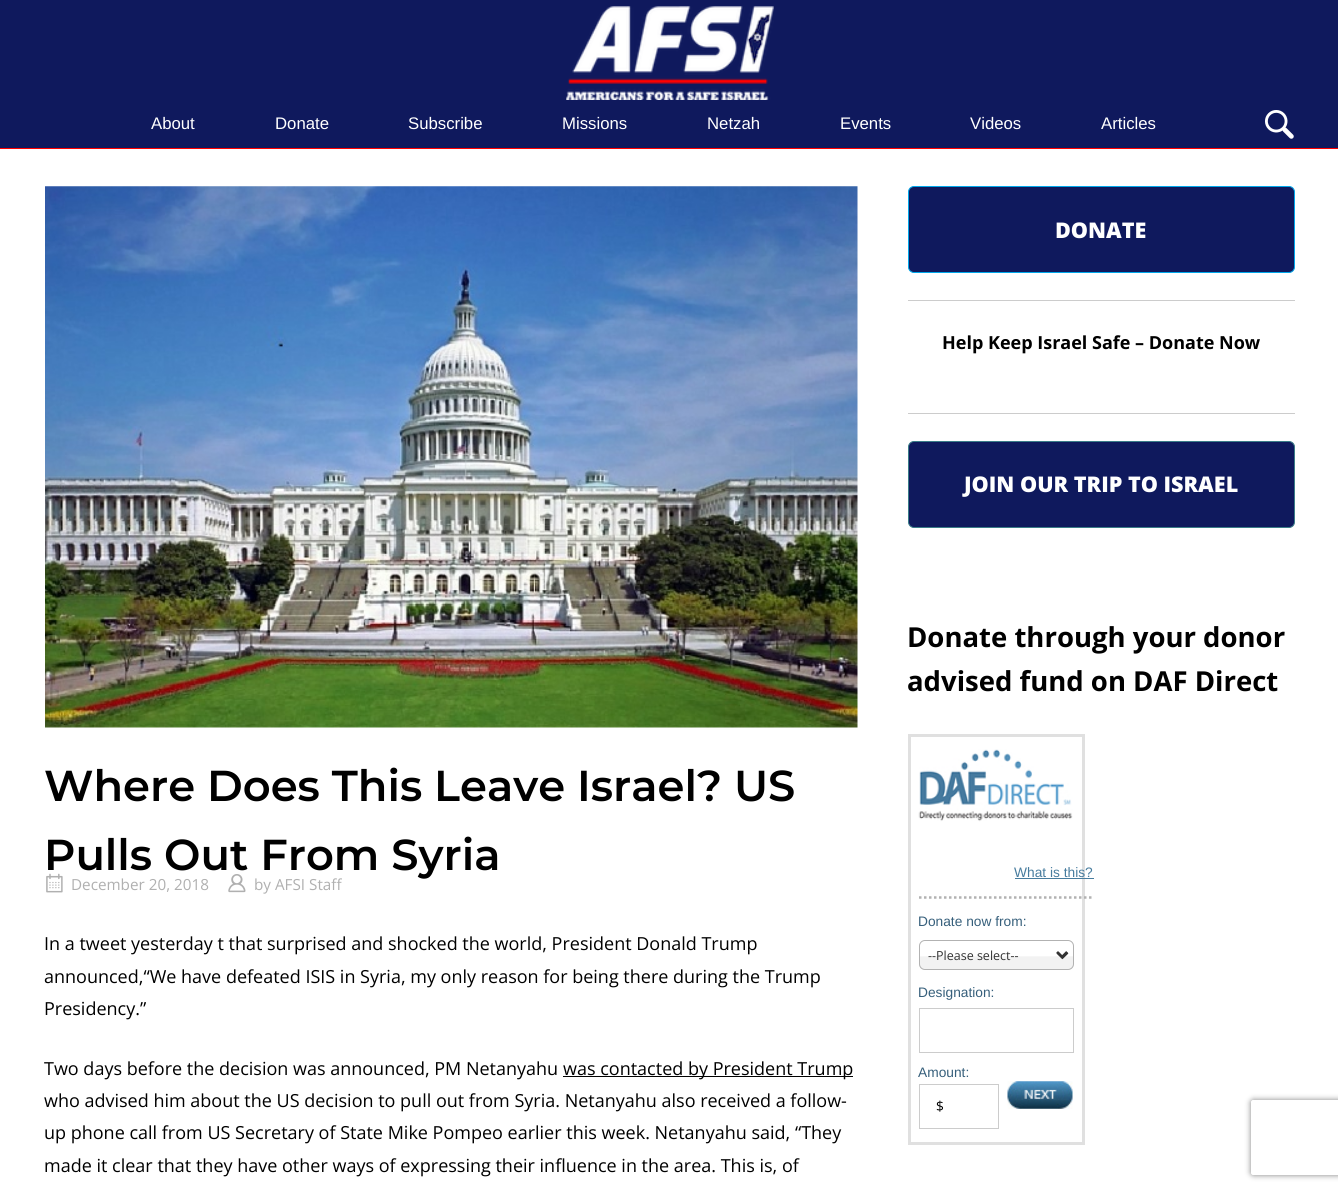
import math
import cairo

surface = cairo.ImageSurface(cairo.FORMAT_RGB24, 1338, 1192)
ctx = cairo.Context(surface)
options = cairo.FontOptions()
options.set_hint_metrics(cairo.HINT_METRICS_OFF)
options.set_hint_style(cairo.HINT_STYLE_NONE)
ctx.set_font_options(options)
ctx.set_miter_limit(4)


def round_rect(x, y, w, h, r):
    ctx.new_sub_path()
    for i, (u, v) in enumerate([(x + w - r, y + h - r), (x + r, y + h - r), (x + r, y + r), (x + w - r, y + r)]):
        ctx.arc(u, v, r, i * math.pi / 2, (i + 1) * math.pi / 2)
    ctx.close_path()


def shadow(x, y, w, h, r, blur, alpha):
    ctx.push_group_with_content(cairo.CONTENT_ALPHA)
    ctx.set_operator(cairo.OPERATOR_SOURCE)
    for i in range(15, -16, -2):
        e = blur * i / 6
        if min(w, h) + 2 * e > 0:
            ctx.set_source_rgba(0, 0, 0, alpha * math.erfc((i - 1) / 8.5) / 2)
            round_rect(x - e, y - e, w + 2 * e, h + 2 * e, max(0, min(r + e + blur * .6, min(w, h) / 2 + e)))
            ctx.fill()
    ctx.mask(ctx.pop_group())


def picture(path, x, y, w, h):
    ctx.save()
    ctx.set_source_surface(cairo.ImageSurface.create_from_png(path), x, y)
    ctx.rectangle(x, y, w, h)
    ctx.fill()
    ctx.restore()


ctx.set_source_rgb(1, 1, 1)
ctx.paint()
ctx.set_source_rgb(0.059, 0.098, 0.365)
ctx.rectangle(0, 0, 1338, 148)
ctx.fill()
ctx.set_source_rgb(1, 0, 0)
ctx.rectangle(0, 148, 1338, 1)
ctx.fill()
picture("img1.png", 566, 6, 208, 94)
ctx.select_font_face("Liberation Sans")
ctx.set_font_size(16.75)
ctx.set_source_rgb(1, 1, 1)
ctx.move_to(151, 129)
ctx.show_text("About")
ctx.move_to(275, 129)
ctx.show_text("Donate")
ctx.move_to(408, 129)
ctx.show_text("Subscribe")
ctx.move_to(562, 129)
ctx.show_text("Missions")
ctx.move_to(707, 129)
ctx.show_text("Netzah")
ctx.move_to(840, 129)
ctx.show_text("Events")
ctx.move_to(970, 129)
ctx.show_text("Videos")
ctx.move_to(1101, 129)
ctx.show_text("Articles")
picture("img2.png", 1265, 110, 29, 29)
picture("img3.png", 45, 186, 813, 542)
ctx.select_font_face("Montserrat SemiBold")
ctx.set_font_size(43.25)
ctx.set_source_rgb(0, 0, 0)
ctx.move_to(44, 801)
ctx.show_text("Where Does This Leave Israel? US")
ctx.move_to(44, 870)
ctx.show_text("Pulls Out From Syria")
picture("img4.png", 46, 873, 17, 20)
ctx.select_font_face("Open Sans")
ctx.set_font_size(15.25)
ctx.set_source_rgb(0.69, 0.69, 0.69)
ctx.move_to(71, 890)
ctx.show_text("December 20, 2018")
picture("img5.png", 228, 874, 18, 19)
ctx.move_to(254, 890)
ctx.show_text("by AFSI Staff")
ctx.set_font_size(18)
ctx.set_source_rgb(0, 0, 0)
ctx.move_to(44, 950)
ctx.show_text("In a tweet yesterday t that surprised and shocked the world, President Donald Trump")
ctx.move_to(44, 983)
ctx.show_text("announced,“We have defeated ISIS in Syria, my only reason for being there during the Trump")
ctx.move_to(44, 1015)
ctx.show_text("Presidency.”")
ctx.move_to(44, 1075)
ctx.show_text("Two days before the decision was announced, PM Netanyahu")
ctx.rectangle(563, 1076, 290, 1)
ctx.fill()
ctx.move_to(563, 1075)
ctx.show_text("was contacted by President Trump")
ctx.move_to(44, 1107)
ctx.show_text("who advised him about the US decision to pull out from Syria. Netanyahu also received a follow-")
ctx.move_to(44, 1139)
ctx.show_text("up phone call from US Secretary of State Mike Pompeo earlier this week. Netanyahu said, “They")
ctx.move_to(44, 1172)
ctx.show_text("made it clear that they have other ways of expressing their influence in the area. This is, of")
ctx.set_source_rgb(0.059, 0.098, 0.365)
round_rect(908.5, 186.5, 386, 86, 5.5)
ctx.fill_preserve()
ctx.set_source_rgb(0, 0.659, 0.918)
ctx.set_line_width(1)
ctx.stroke()
ctx.select_font_face("Open Sans ExtraBold")
ctx.set_font_size(21.6)
ctx.set_source_rgb(1, 1, 1)
ctx.move_to(1055, 238)
ctx.show_text("DONATE")
ctx.set_source_rgb(0.8, 0.8, 0.8)
ctx.rectangle(908, 300, 387, 1)
ctx.fill()
ctx.select_font_face("Open Sans", cairo.FONT_SLANT_NORMAL, cairo.FONT_WEIGHT_BOLD)
ctx.set_font_size(18)
ctx.set_source_rgb(0, 0, 0)
ctx.move_to(942, 349)
ctx.show_text("Help Keep Israel Safe – Donate Now")
ctx.set_source_rgb(0.8, 0.8, 0.8)
ctx.rectangle(908, 413, 387, 1)
ctx.fill()
ctx.set_source_rgb(0.059, 0.098, 0.365)
round_rect(908.5, 441.5, 386, 86, 5.5)
ctx.fill_preserve()
ctx.set_source_rgb(0.227, 0.49, 0.533)
ctx.stroke()
ctx.select_font_face("Open Sans ExtraBold")
ctx.set_font_size(21.6)
ctx.set_source_rgb(1, 1, 1)
ctx.move_to(964, 492)
ctx.show_text("JOIN OUR TRIP TO ISRAEL")
ctx.select_font_face("Open Sans", cairo.FONT_SLANT_NORMAL, cairo.FONT_WEIGHT_BOLD)
ctx.set_font_size(27.5)
ctx.set_source_rgb(0, 0, 0)
ctx.move_to(907, 647)
ctx.show_text("Donate through your donor")
ctx.move_to(907, 691)
ctx.show_text("advised fund on DAF Direct")
ctx.rectangle(909.5, 735.5, 174, 408)
ctx.set_source_rgb(0.878, 0.878, 0.878)
ctx.set_line_width(3)
ctx.stroke()
picture("img6.png", 918, 749, 155, 73)
ctx.new_path()
ctx.move_to(919, 897.5)
ctx.line_to(1094, 897.5)
ctx.set_source_rgb(0.698, 0.698, 0.698)
ctx.set_line_width(2.5)
ctx.set_dash([2.5, 2.5])
ctx.stroke()
ctx.select_font_face("Liberation Sans")
ctx.set_font_size(13.75)
ctx.set_source_rgb(0.278, 0.486, 0.62)
ctx.move_to(1014, 877)
ctx.show_text("What is this?")
ctx.rectangle(1015, 878, 79, 1)
ctx.fill()
ctx.set_source_rgb(0.212, 0.373, 0.482)
ctx.move_to(918, 926)
ctx.show_text("Donate now from:")
picture("img7.png", 919, 951, 155, 19)
round_rect(919.5, 940.5, 154, 29, 5.5)
ctx.set_source_rgb(0.698, 0.698, 0.698)
ctx.set_line_width(1)
ctx.set_dash([])
ctx.stroke()
ctx.new_path()
ctx.move_to(1057, 952)
ctx.line_to(1062, 957)
ctx.line_to(1067, 952)
ctx.set_source_rgb(0.2, 0.2, 0.2)
ctx.set_line_width(2.5)
ctx.stroke()
ctx.select_font_face("Open Sans")
ctx.set_font_size(12.5)
ctx.move_to(928, 960)
ctx.show_text("--Please select--")
ctx.select_font_face("Liberation Sans")
ctx.set_font_size(13.75)
ctx.set_source_rgb(0.212, 0.373, 0.482)
ctx.move_to(918, 997)
ctx.show_text("Designation:")
ctx.rectangle(919.5, 1008.5, 154, 44)
ctx.set_source_rgb(0.8, 0.8, 0.8)
ctx.set_line_width(1)
ctx.stroke()
ctx.set_source_rgb(0.212, 0.373, 0.482)
ctx.move_to(918, 1077)
ctx.show_text("Amount:")
ctx.rectangle(919.5, 1084.5, 79, 44)
ctx.set_source_rgb(0.8, 0.8, 0.8)
ctx.stroke()
ctx.select_font_face("Open Sans")
ctx.set_source_rgb(0, 0, 0)
ctx.move_to(936, 1111)
ctx.show_text("$")
picture("img8.png", 1007, 1081, 66, 28)
ctx.save()
ctx.set_fill_rule(cairo.FILL_RULE_EVEN_ODD)
ctx.new_path()
ctx.move_to(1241, 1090)
ctx.line_to(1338, 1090)
ctx.line_to(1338, 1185)
ctx.line_to(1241, 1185)
ctx.close_path()
ctx.move_to(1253.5, 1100)
ctx.line_to(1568.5, 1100)
ctx.curve_to(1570, 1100, 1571, 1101, 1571, 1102.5)
ctx.line_to(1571, 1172.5)
ctx.curve_to(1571, 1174, 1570, 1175, 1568.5, 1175)
ctx.line_to(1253.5, 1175)
ctx.curve_to(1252, 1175, 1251, 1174, 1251, 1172.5)
ctx.line_to(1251, 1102.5)
ctx.curve_to(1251, 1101, 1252, 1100, 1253.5, 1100)
ctx.close_path()
ctx.clip()
ctx.set_source_rgb(0.502, 0.502, 0.502)
shadow(1251, 1100, 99, 75, 2.5, 3, 1)
ctx.restore()
surface.write_to_png("page.png")
